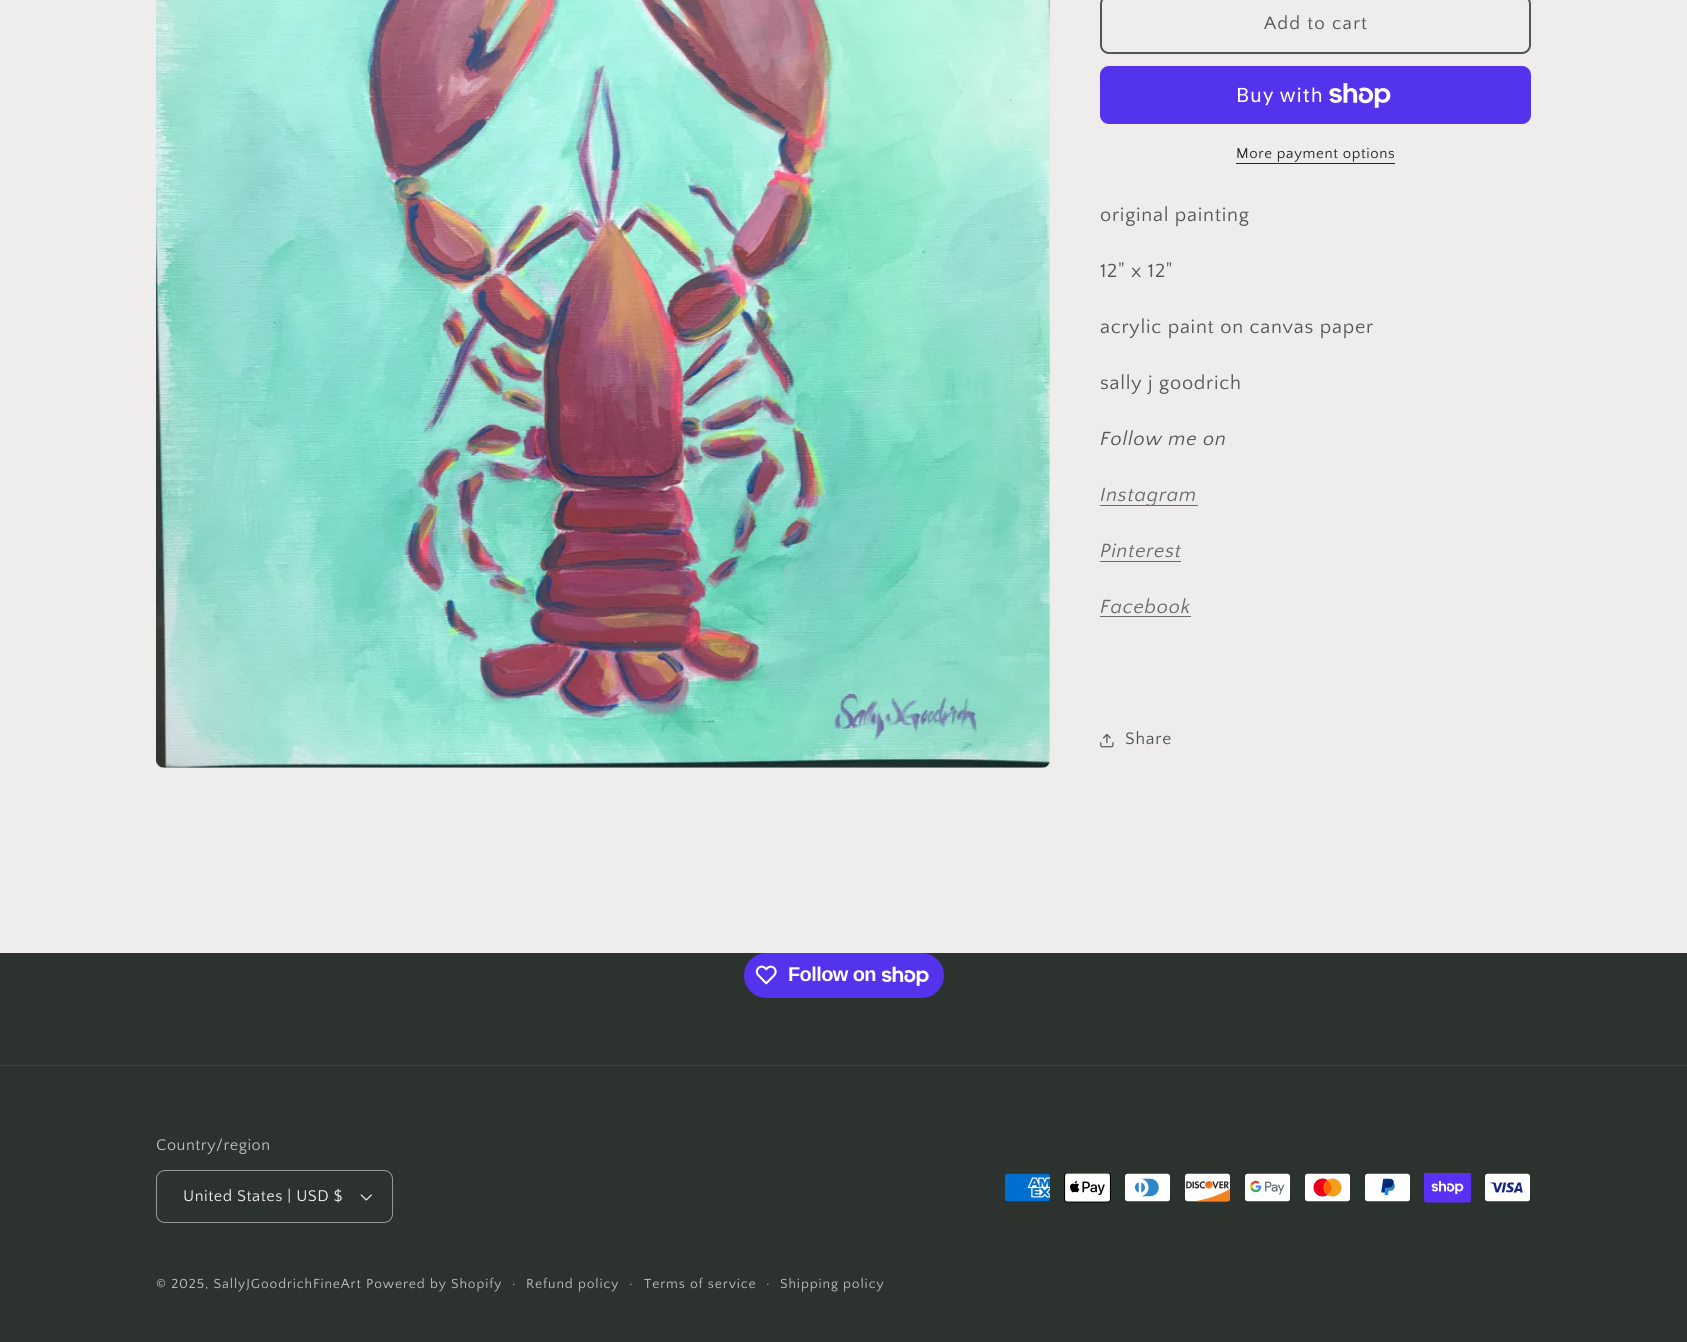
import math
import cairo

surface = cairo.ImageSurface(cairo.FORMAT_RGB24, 1687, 1342)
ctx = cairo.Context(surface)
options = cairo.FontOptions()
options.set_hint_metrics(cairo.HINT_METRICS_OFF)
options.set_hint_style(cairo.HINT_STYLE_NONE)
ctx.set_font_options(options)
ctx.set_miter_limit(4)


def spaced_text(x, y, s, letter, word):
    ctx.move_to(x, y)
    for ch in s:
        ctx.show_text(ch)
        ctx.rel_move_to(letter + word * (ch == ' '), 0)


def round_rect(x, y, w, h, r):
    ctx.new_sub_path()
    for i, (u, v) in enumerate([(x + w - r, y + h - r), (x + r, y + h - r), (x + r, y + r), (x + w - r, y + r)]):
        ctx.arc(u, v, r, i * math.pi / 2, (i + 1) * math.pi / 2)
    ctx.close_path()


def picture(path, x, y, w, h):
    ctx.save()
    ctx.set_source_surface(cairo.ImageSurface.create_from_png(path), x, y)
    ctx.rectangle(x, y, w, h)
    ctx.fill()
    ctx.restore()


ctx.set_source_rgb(0.937, 0.925, 0.925)
ctx.paint()
picture("img1.png", 156, 0, 894, 768)
round_rect(1101, -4, 429, 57, 8)
ctx.set_source_rgb(0.314, 0.337, 0.333)
ctx.stroke()
ctx.select_font_face("Quattrocento Sans")
ctx.set_font_size(18.75)
spaced_text(1264, 29, "Add to cart", 1.25, 0)
ctx.set_source_rgb(0.329, 0.2, 0.922)
round_rect(1100, 66, 431, 58, 9)
ctx.fill()
ctx.select_font_face("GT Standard")
ctx.set_font_size(20)
ctx.set_source_rgb(1, 1, 1)
spaced_text(1236, 102, "Buy with", 0.75, 0)
picture("img2.png", 1329, 83, 62, 25)
ctx.select_font_face("Quattrocento Sans")
ctx.set_font_size(15)
ctx.set_source_rgb(0.145, 0.145, 0.145)
spaced_text(1236, 158, "More payment options", 0.6, 0)
ctx.rectangle(1236, 163, 159, 1)
ctx.fill()
ctx.set_font_size(20)
ctx.set_source_rgb(0.345, 0.341, 0.341)
spaced_text(1100, 221, "original painting", 0.75, 0)
spaced_text(1100, 277, "12\" x 12\"", 0.75, 0)
spaced_text(1100, 333, "acrylic paint on canvas paper", 0.75, 0)
spaced_text(1100, 389, "sally j goodrich", 0.75, 0)
ctx.select_font_face("Quattrocento Sans", cairo.FONT_SLANT_ITALIC)
spaced_text(1100, 445, "Follow me on", 0.75, 0)
ctx.set_source_rgb(0.408, 0.427, 0.424)
ctx.rectangle(1100, 505, 98, 1)
ctx.fill()
ctx.set_source_rgb(0.408, 0.424, 0.42)
spaced_text(1100, 501, "Instagram", 0.75, 0)
spaced_text(1100, 557, "Pinterest", 0.75, 0)
ctx.set_source_rgb(0.408, 0.427, 0.424)
ctx.rectangle(1100, 561, 81, 1)
ctx.fill()
ctx.set_source_rgb(0.408, 0.424, 0.42)
spaced_text(1100, 613, "Facebook", 0.75, 0)
ctx.set_source_rgb(0.408, 0.427, 0.424)
ctx.rectangle(1100, 616, 91, 1)
ctx.fill()
picture("img3.png", 1100, 733, 14, 15)
ctx.select_font_face("Quattrocento Sans")
ctx.set_font_size(17.5)
ctx.set_source_rgb(0.314, 0.337, 0.333)
spaced_text(1125, 744, "Share", 0.75, 0)
ctx.set_source_rgb(0.173, 0.2, 0.184)
ctx.rectangle(0, 953, 1687, 389)
ctx.fill()
ctx.set_source_rgb(0.329, 0.2, 0.922)
round_rect(744, 953, 200, 45, 22.5)
ctx.fill()
picture("img4.png", 755, 965, 22, 20)
ctx.select_font_face("Liberation Sans", cairo.FONT_SLANT_NORMAL, cairo.FONT_WEIGHT_BOLD)
ctx.set_font_size(20)
ctx.set_source_rgb(1, 1, 1)
spaced_text(788, 981, "Follow on", -0.6, 0)
picture("img5.png", 881, 966, 48, 20)
ctx.set_source_rgb(0.235, 0.259, 0.243)
ctx.rectangle(0, 1065, 1687, 1)
ctx.fill()
ctx.select_font_face("Quattrocento Sans")
ctx.set_font_size(16.25)
ctx.set_source_rgb(0.745, 0.745, 0.741)
spaced_text(156, 1150, "Country/region", 0.5, 0)
picture("img6.png", 360, 1194, 12, 7)
round_rect(156.5, 1170.5, 236, 52, 8.5)
ctx.set_source_rgb(0.592, 0.6, 0.592)
ctx.set_line_width(1)
ctx.stroke()
ctx.set_source_rgb(0.937, 0.925, 0.925)
spaced_text(183, 1201, "United States | USD $", 0.5, 0)
picture("img7.png", 1005, 1173, 45, 29)
picture("img8.png", 1064, 1173, 47, 30)
picture("img9.png", 1125, 1173, 45, 29)
picture("img10.png", 1185, 1173, 45, 29)
picture("img11.png", 1245, 1173, 45, 29)
picture("img12.png", 1305, 1173, 45, 29)
picture("img13.png", 1365, 1173, 45, 29)
picture("img14.png", 1424, 1173, 47, 30)
picture("img15.png", 1485, 1173, 45, 29)
ctx.set_font_size(13.75)
ctx.set_source_rgb(0.745, 0.745, 0.741)
spaced_text(156, 1288, "© 2025, SallyJGoodrichFineArt", 0.9, 0)
spaced_text(366, 1288, "Powered by Shopify", 0.9, 0)
ctx.set_font_size(15)
spaced_text(512, 1288, "·", 0.9, 0)
ctx.set_font_size(13.75)
spaced_text(526, 1288, "Refund policy", 0.9, 0)
ctx.set_font_size(15)
spaced_text(629, 1288, "·", 0.9, 0)
ctx.set_font_size(13.75)
spaced_text(644, 1288, "Terms of service", 0.9, 0)
ctx.set_font_size(15)
spaced_text(766, 1288, "·", 0.9, 0)
ctx.set_font_size(13.75)
spaced_text(780, 1288, "Shipping policy", 0.9, 0)
surface.write_to_png("page.png")
